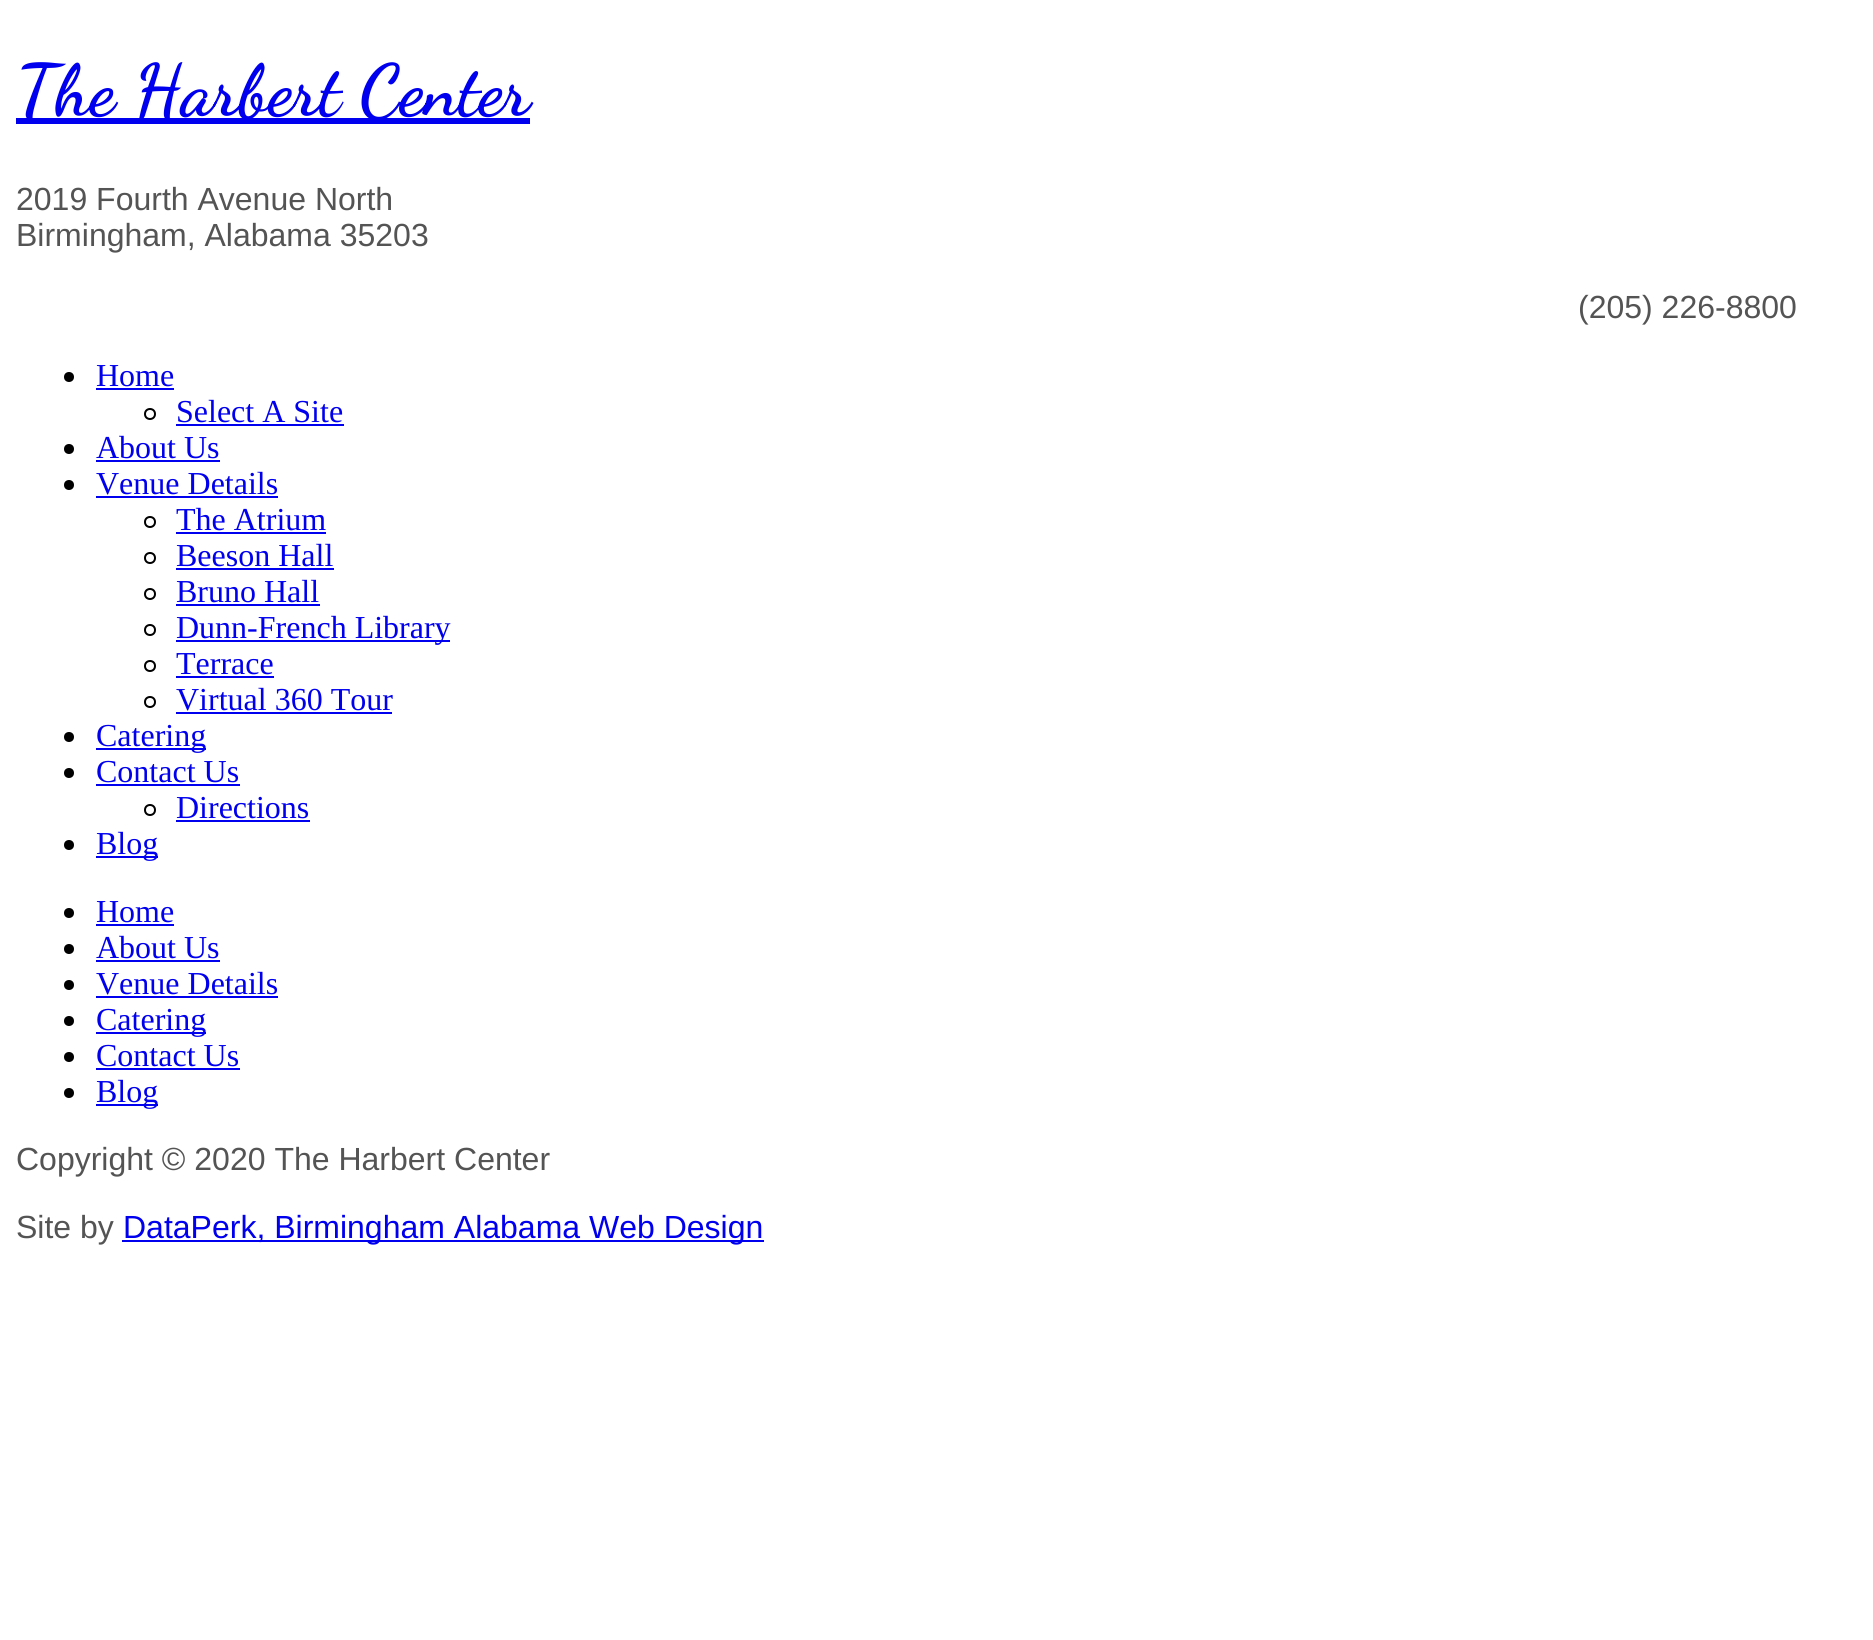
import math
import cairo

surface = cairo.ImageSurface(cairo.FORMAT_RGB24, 1873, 1640)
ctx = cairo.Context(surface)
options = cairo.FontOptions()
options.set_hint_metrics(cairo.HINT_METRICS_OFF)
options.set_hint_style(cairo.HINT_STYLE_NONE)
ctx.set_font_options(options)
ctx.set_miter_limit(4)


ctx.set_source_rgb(1, 1, 1)
ctx.paint()
ctx.set_source_rgb(0, 0, 0.933)
ctx.rectangle(16, 118, 514, 6)
ctx.fill()
ctx.select_font_face("Dancing Script", cairo.FONT_SLANT_NORMAL, cairo.FONT_WEIGHT_BOLD)
ctx.set_font_size(72)
ctx.move_to(16, 114)
ctx.show_text("The Harbert Center")
ctx.select_font_face("Liberation Sans")
ctx.set_font_size(32)
ctx.set_source_rgb(0.329, 0.329, 0.329)
ctx.move_to(16, 210)
ctx.show_text("2019 Fourth Avenue North")
ctx.move_to(16, 246)
ctx.show_text("Birmingham, Alabama 35203")
ctx.move_to(1578, 318)
ctx.show_text("(205) 226-8800")
ctx.set_source_rgb(0, 0, 0)
ctx.new_path()
ctx.arc(69, 377, 5, 0, 2 * math.pi)
ctx.fill()
ctx.select_font_face("Liberation Serif")
ctx.set_source_rgb(0, 0, 0.933)
ctx.move_to(96, 386)
ctx.show_text("Home")
ctx.rectangle(96, 388, 78, 2)
ctx.fill()
ctx.arc(150, 414, 5, 0, 2 * math.pi)
ctx.set_source_rgb(0, 0, 0)
ctx.stroke()
ctx.set_source_rgb(0, 0, 0.933)
ctx.move_to(176, 422)
ctx.show_text("Select A Site")
ctx.rectangle(176, 424, 168, 2)
ctx.fill()
ctx.set_source_rgb(0, 0, 0)
ctx.arc(69, 449, 5, 0, 2 * math.pi)
ctx.fill()
ctx.set_source_rgb(0, 0, 0.933)
ctx.move_to(96, 458)
ctx.show_text("About Us")
ctx.rectangle(96, 460, 124, 2)
ctx.fill()
ctx.set_source_rgb(0, 0, 0)
ctx.arc(69, 485, 5, 0, 2 * math.pi)
ctx.fill()
ctx.set_source_rgb(0, 0, 0.933)
ctx.move_to(96, 494)
ctx.show_text("Venue Details")
ctx.rectangle(96, 496, 182, 2)
ctx.fill()
ctx.arc(150, 522, 5, 0, 2 * math.pi)
ctx.set_source_rgb(0, 0, 0)
ctx.stroke()
ctx.set_source_rgb(0, 0, 0.933)
ctx.move_to(176, 530)
ctx.show_text("The Atrium")
ctx.rectangle(176, 532, 150, 2)
ctx.fill()
ctx.arc(150, 558, 5, 0, 2 * math.pi)
ctx.set_source_rgb(0, 0, 0)
ctx.stroke()
ctx.set_source_rgb(0, 0, 0.933)
ctx.move_to(176, 566)
ctx.show_text("Beeson Hall")
ctx.rectangle(176, 568, 158, 2)
ctx.fill()
ctx.arc(150, 594, 5, 0, 2 * math.pi)
ctx.set_source_rgb(0, 0, 0)
ctx.stroke()
ctx.set_source_rgb(0, 0, 0.933)
ctx.move_to(176, 602)
ctx.show_text("Bruno Hall")
ctx.rectangle(176, 604, 144, 2)
ctx.fill()
ctx.arc(150, 630, 5, 0, 2 * math.pi)
ctx.set_source_rgb(0, 0, 0)
ctx.stroke()
ctx.set_source_rgb(0, 0, 0.933)
ctx.rectangle(176, 640, 274, 2)
ctx.fill()
ctx.move_to(176, 638)
ctx.show_text("Dunn-French Library")
ctx.new_path()
ctx.arc(150, 666, 5, 0, 2 * math.pi)
ctx.set_source_rgb(0, 0, 0)
ctx.stroke()
ctx.set_source_rgb(0, 0, 0.933)
ctx.move_to(176, 674)
ctx.show_text("Terrace")
ctx.rectangle(176, 676, 98, 2)
ctx.fill()
ctx.arc(150, 702, 5, 0, 2 * math.pi)
ctx.set_source_rgb(0, 0, 0)
ctx.stroke()
ctx.set_source_rgb(0, 0, 0.933)
ctx.move_to(176, 710)
ctx.show_text("Virtual 360 Tour")
ctx.rectangle(176, 712, 216, 2)
ctx.fill()
ctx.set_source_rgb(0, 0, 0)
ctx.arc(69, 737, 5, 0, 2 * math.pi)
ctx.fill()
ctx.set_source_rgb(0, 0, 0.933)
ctx.rectangle(96, 748, 110, 2)
ctx.fill()
ctx.move_to(96, 746)
ctx.show_text("Catering")
ctx.set_source_rgb(0, 0, 0)
ctx.new_path()
ctx.arc(69, 773, 5, 0, 2 * math.pi)
ctx.fill()
ctx.set_source_rgb(0, 0, 0.933)
ctx.move_to(96, 782)
ctx.show_text("Contact Us")
ctx.rectangle(96, 784, 144, 2)
ctx.fill()
ctx.arc(150, 810, 5, 0, 2 * math.pi)
ctx.set_source_rgb(0, 0, 0)
ctx.stroke()
ctx.set_source_rgb(0, 0, 0.933)
ctx.move_to(176, 818)
ctx.show_text("Directions")
ctx.rectangle(176, 820, 134, 2)
ctx.fill()
ctx.set_source_rgb(0, 0, 0)
ctx.arc(69, 845, 5, 0, 2 * math.pi)
ctx.fill()
ctx.set_source_rgb(0, 0, 0.933)
ctx.rectangle(96, 856, 62, 2)
ctx.fill()
ctx.move_to(96, 854)
ctx.show_text("Blog")
ctx.set_source_rgb(0, 0, 0)
ctx.new_path()
ctx.arc(69, 913, 5, 0, 2 * math.pi)
ctx.fill()
ctx.set_source_rgb(0, 0, 0.933)
ctx.move_to(96, 922)
ctx.show_text("Home")
ctx.rectangle(96, 924, 78, 2)
ctx.fill()
ctx.set_source_rgb(0, 0, 0)
ctx.arc(69, 949, 5, 0, 2 * math.pi)
ctx.fill()
ctx.set_source_rgb(0, 0, 0.933)
ctx.move_to(96, 958)
ctx.show_text("About Us")
ctx.rectangle(96, 960, 124, 2)
ctx.fill()
ctx.set_source_rgb(0, 0, 0)
ctx.arc(69, 985, 5, 0, 2 * math.pi)
ctx.fill()
ctx.set_source_rgb(0, 0, 0.933)
ctx.move_to(96, 994)
ctx.show_text("Venue Details")
ctx.rectangle(96, 996, 182, 2)
ctx.fill()
ctx.set_source_rgb(0, 0, 0)
ctx.arc(69, 1021, 5, 0, 2 * math.pi)
ctx.fill()
ctx.set_source_rgb(0, 0, 0.933)
ctx.rectangle(96, 1032, 110, 2)
ctx.fill()
ctx.move_to(96, 1030)
ctx.show_text("Catering")
ctx.set_source_rgb(0, 0, 0)
ctx.new_path()
ctx.arc(69, 1057, 5, 0, 2 * math.pi)
ctx.fill()
ctx.set_source_rgb(0, 0, 0.933)
ctx.move_to(96, 1066)
ctx.show_text("Contact Us")
ctx.rectangle(96, 1068, 144, 2)
ctx.fill()
ctx.set_source_rgb(0, 0, 0)
ctx.arc(69, 1093, 5, 0, 2 * math.pi)
ctx.fill()
ctx.set_source_rgb(0, 0, 0.933)
ctx.rectangle(96, 1104, 62, 2)
ctx.fill()
ctx.move_to(96, 1102)
ctx.show_text("Blog")
ctx.select_font_face("Liberation Sans")
ctx.set_source_rgb(0.329, 0.329, 0.329)
ctx.move_to(16, 1170)
ctx.show_text("Copyright © 2020 The Harbert Center")
ctx.move_to(16, 1238)
ctx.show_text("Site by")
ctx.set_source_rgb(0, 0, 0.933)
ctx.rectangle(122, 1240, 642, 2)
ctx.fill()
ctx.move_to(123, 1238)
ctx.show_text("DataPerk, Birmingham Alabama Web Design")
surface.write_to_png("page.png")
